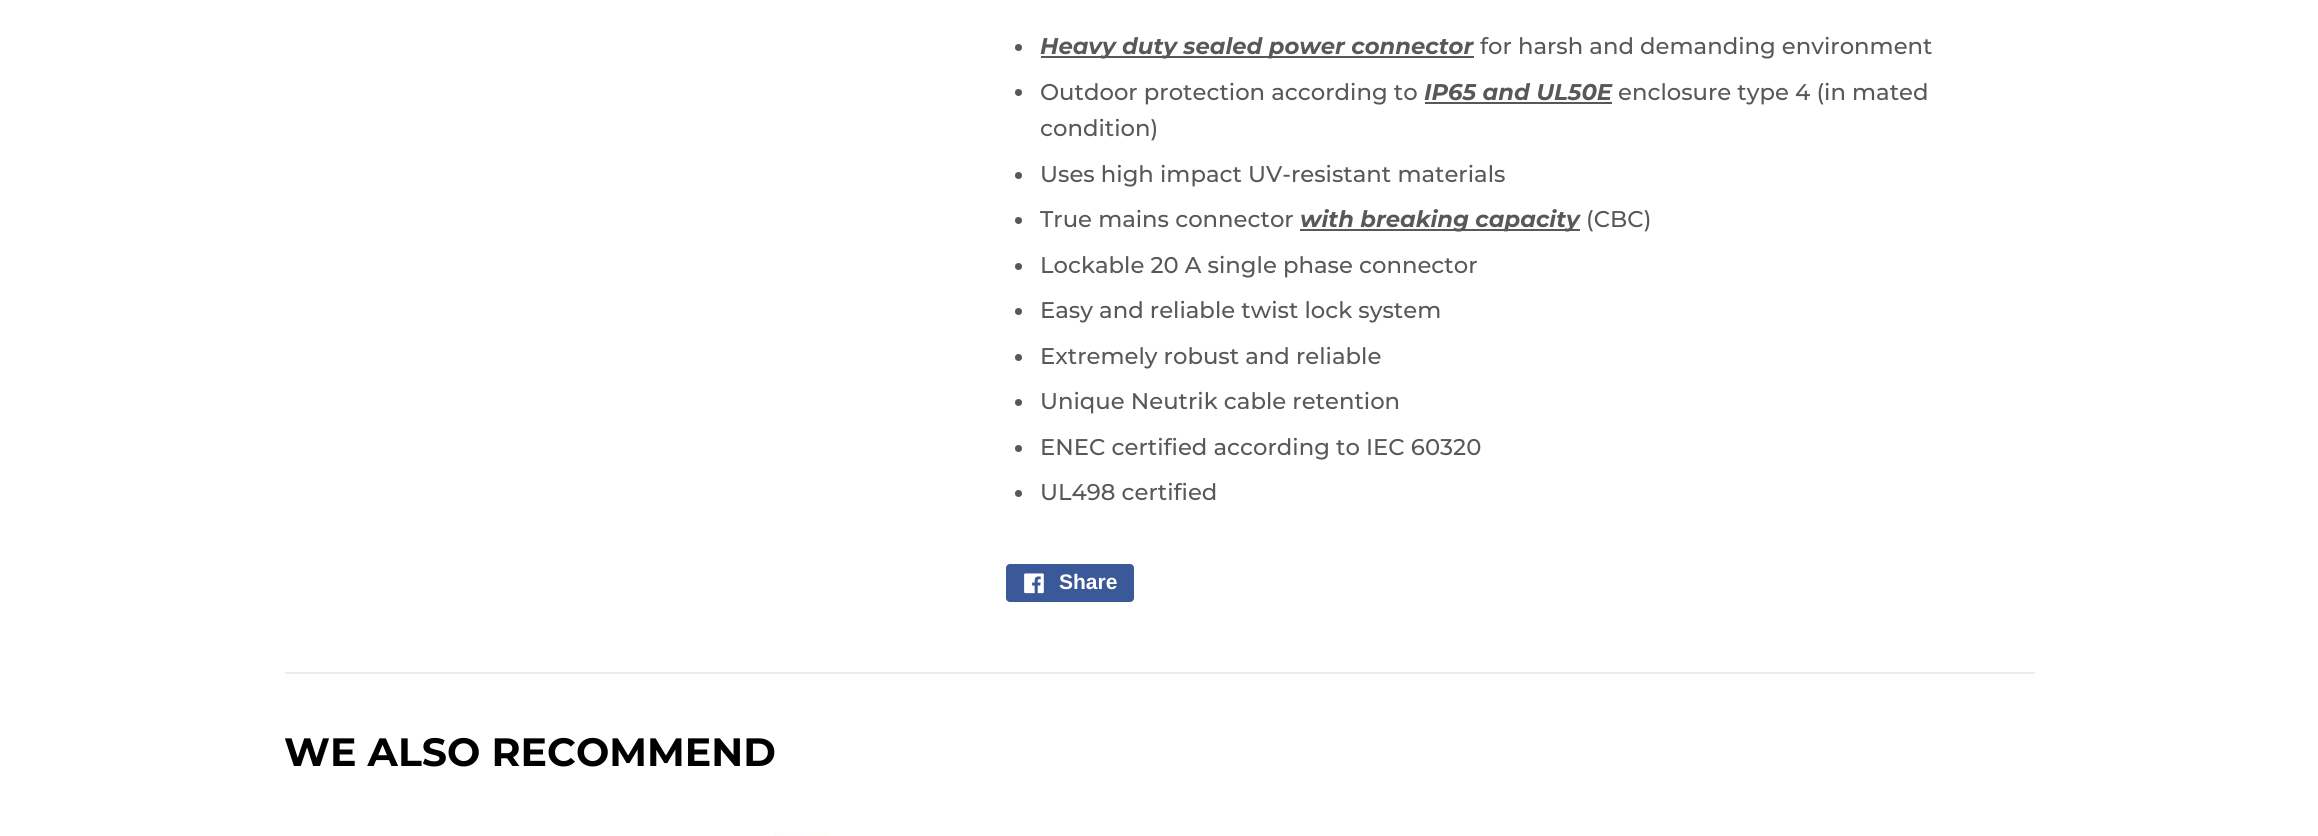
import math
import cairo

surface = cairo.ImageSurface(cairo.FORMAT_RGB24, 2318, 836)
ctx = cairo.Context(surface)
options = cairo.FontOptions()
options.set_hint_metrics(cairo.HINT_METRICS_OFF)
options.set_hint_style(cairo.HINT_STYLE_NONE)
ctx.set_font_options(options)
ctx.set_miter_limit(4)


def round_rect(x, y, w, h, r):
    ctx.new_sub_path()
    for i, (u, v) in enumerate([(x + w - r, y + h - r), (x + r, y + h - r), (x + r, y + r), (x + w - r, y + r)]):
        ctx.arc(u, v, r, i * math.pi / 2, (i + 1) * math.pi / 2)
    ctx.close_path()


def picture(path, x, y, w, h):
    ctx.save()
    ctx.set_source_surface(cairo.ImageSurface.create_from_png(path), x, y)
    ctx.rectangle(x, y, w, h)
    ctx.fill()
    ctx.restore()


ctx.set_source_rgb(1, 1, 1)
ctx.paint()
ctx.set_source_rgb(0.345, 0.345, 0.345)
ctx.arc(1018.5, 47.5, 3.5, 0, 2 * math.pi)
ctx.fill()
ctx.rectangle(1041, 56, 433, 2)
ctx.fill()
ctx.select_font_face("Montserrat", cairo.FONT_SLANT_ITALIC, cairo.FONT_WEIGHT_BOLD)
ctx.set_font_size(22.75)
ctx.move_to(1040, 54)
ctx.show_text("Heavy duty sealed power connector")
ctx.select_font_face("Montserrat Medium")
ctx.move_to(1480, 54)
ctx.show_text("for harsh and demanding environment")
ctx.new_path()
ctx.arc(1018.5, 92.5, 3.5, 0, 2 * math.pi)
ctx.fill()
ctx.move_to(1040, 100)
ctx.show_text("Outdoor protection according to")
ctx.select_font_face("Montserrat", cairo.FONT_SLANT_ITALIC, cairo.FONT_WEIGHT_BOLD)
ctx.move_to(1424, 100)
ctx.show_text("IP65 and UL50E")
ctx.rectangle(1425, 102, 187, 2)
ctx.fill()
ctx.select_font_face("Montserrat Medium")
ctx.move_to(1618, 100)
ctx.show_text("enclosure type 4 (in mated")
ctx.move_to(1040, 136)
ctx.show_text("condition)")
ctx.new_path()
ctx.arc(1018.5, 175.5, 3.5, 0, 2 * math.pi)
ctx.fill()
ctx.move_to(1040, 182)
ctx.show_text("Uses high impact UV-resistant materials")
ctx.new_path()
ctx.arc(1018.5, 220.5, 3.5, 0, 2 * math.pi)
ctx.fill()
ctx.move_to(1040, 227)
ctx.show_text("True mains connector")
ctx.rectangle(1300, 229, 280, 2)
ctx.fill()
ctx.select_font_face("Montserrat", cairo.FONT_SLANT_ITALIC, cairo.FONT_WEIGHT_BOLD)
ctx.move_to(1300, 227)
ctx.show_text("with breaking capacity")
ctx.select_font_face("Montserrat Medium")
ctx.move_to(1586, 227)
ctx.show_text("(CBC)")
ctx.new_path()
ctx.arc(1018.5, 266.5, 3.5, 0, 2 * math.pi)
ctx.fill()
ctx.move_to(1040, 273)
ctx.show_text("Lockable 20 A single phase connector")
ctx.new_path()
ctx.arc(1018.5, 311.5, 3.5, 0, 2 * math.pi)
ctx.fill()
ctx.move_to(1040, 318)
ctx.show_text("Easy and reliable twist lock system")
ctx.new_path()
ctx.arc(1018.5, 357.5, 3.5, 0, 2 * math.pi)
ctx.fill()
ctx.move_to(1040, 364)
ctx.show_text("Extremely robust and reliable")
ctx.new_path()
ctx.arc(1018.5, 402.5, 3.5, 0, 2 * math.pi)
ctx.fill()
ctx.move_to(1040, 409)
ctx.show_text("Unique Neutrik cable retention")
ctx.new_path()
ctx.arc(1018.5, 448.5, 3.5, 0, 2 * math.pi)
ctx.fill()
ctx.move_to(1040, 455)
ctx.show_text("ENEC certified according to IEC 60320")
ctx.new_path()
ctx.arc(1018.5, 493.5, 3.5, 0, 2 * math.pi)
ctx.fill()
ctx.move_to(1040, 500)
ctx.show_text("UL498 certified")
ctx.set_source_rgb(0.231, 0.349, 0.596)
round_rect(1006, 564, 128, 38, 4)
ctx.fill()
picture("img1.png", 1024, 573, 20, 21)
ctx.select_font_face("Liberation Sans", cairo.FONT_SLANT_NORMAL, cairo.FONT_WEIGHT_BOLD)
ctx.set_font_size(21)
ctx.set_source_rgb(1, 1, 1)
ctx.move_to(1059, 589)
ctx.show_text("Share")
ctx.set_source_rgb(0.925, 0.925, 0.925)
ctx.rectangle(285, 672, 1750, 2)
ctx.fill()
ctx.select_font_face("Montserrat", cairo.FONT_SLANT_NORMAL, cairo.FONT_WEIGHT_BOLD)
ctx.set_font_size(39.5)
ctx.set_source_rgb(0, 0, 0)
ctx.move_to(284, 766)
ctx.show_text("WE ALSO RECOMMEND")
picture("img2.png", 773, 833, 56, 3)
surface.write_to_png("page.png")
